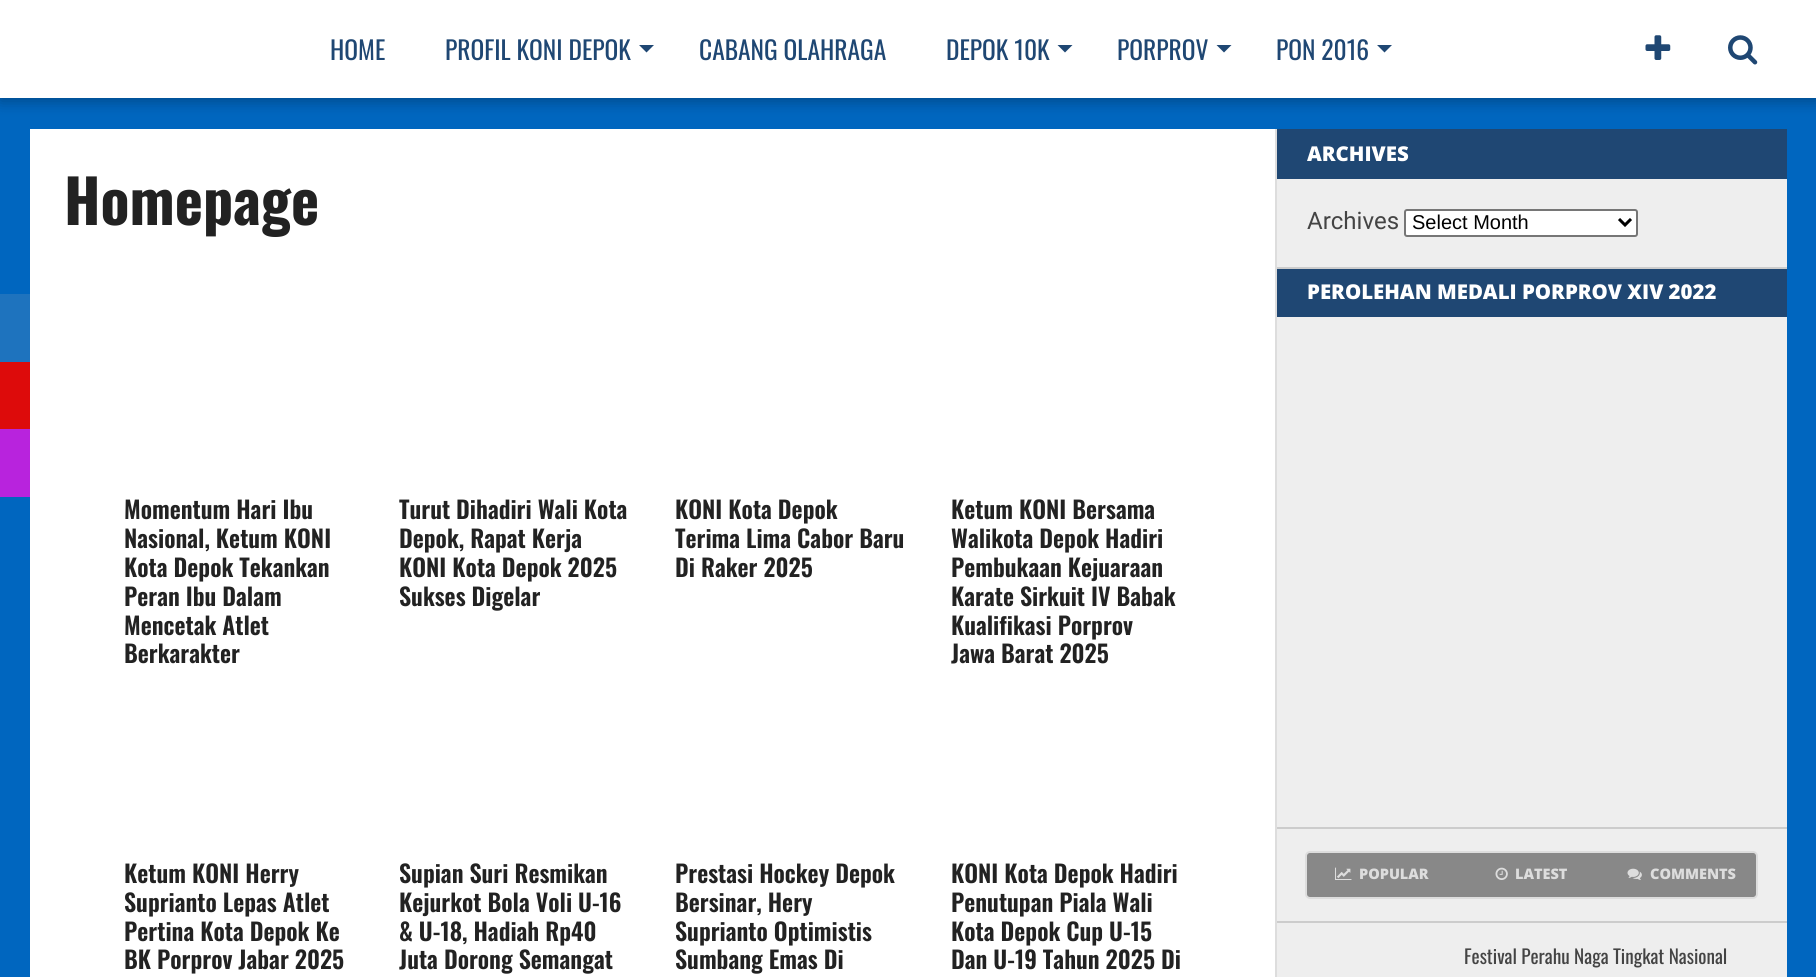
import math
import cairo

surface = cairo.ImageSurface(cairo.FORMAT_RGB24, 1816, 977)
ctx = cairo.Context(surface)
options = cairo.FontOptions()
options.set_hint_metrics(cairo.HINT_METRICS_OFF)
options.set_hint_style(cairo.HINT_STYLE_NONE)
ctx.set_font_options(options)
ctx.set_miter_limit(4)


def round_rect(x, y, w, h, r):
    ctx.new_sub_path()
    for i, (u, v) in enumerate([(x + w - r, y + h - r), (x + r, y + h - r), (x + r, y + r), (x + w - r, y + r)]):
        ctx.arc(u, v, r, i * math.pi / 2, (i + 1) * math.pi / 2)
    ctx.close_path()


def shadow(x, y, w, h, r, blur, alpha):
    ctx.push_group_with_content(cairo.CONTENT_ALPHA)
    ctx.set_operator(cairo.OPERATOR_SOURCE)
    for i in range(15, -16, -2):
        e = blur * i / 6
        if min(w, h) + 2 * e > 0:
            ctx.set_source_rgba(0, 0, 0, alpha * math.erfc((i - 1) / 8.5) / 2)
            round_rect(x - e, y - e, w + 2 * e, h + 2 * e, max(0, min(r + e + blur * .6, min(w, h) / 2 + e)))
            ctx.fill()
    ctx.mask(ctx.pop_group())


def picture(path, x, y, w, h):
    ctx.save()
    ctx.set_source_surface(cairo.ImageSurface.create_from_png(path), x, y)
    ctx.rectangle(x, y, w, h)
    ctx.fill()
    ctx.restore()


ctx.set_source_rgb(0, 0.4, 0.749)
ctx.paint()
ctx.set_source_rgb(0.118, 0.451, 0.745)
ctx.rectangle(0, 294, 30, 68)
ctx.fill()
ctx.set_source_rgb(0.867, 0.043, 0.043)
ctx.rectangle(0, 362, 30, 67)
ctx.fill()
ctx.set_source_rgb(0.722, 0.137, 0.867)
ctx.rectangle(0, 429, 30, 68)
ctx.fill()
ctx.set_source_rgb(0, 0, 0)
shadow(0, 3, 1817, 98, 0, 7.5, 0.3)
ctx.set_source_rgb(1, 1, 1)
ctx.rectangle(0, 0, 1816, 98)
ctx.fill()
ctx.select_font_face("Oswald")
ctx.set_font_size(25.5)
ctx.set_source_rgb(0.122, 0.278, 0.451)
ctx.move_to(330, 60)
ctx.show_text("HOME")
ctx.move_to(445, 60)
ctx.show_text("PROFIL KONI DEPOK")
ctx.new_path()
ctx.move_to(639, 45)
ctx.line_to(654, 45)
ctx.line_to(646.5, 52.5)
ctx.close_path()
ctx.fill()
ctx.move_to(699, 60)
ctx.show_text("CABANG OLAHRAGA")
ctx.move_to(946, 60)
ctx.show_text("DEPOK 10K")
ctx.new_path()
ctx.move_to(1057.5, 45)
ctx.line_to(1072.5, 45)
ctx.line_to(1065, 52.5)
ctx.close_path()
ctx.fill()
ctx.move_to(1117, 60)
ctx.show_text("PORPROV")
ctx.new_path()
ctx.move_to(1216.5, 45)
ctx.line_to(1231.5, 45)
ctx.line_to(1224, 52.5)
ctx.close_path()
ctx.fill()
ctx.move_to(1276, 60)
ctx.show_text("PON 2016")
ctx.new_path()
ctx.move_to(1377, 45)
ctx.line_to(1392, 45)
ctx.line_to(1384.5, 52.5)
ctx.close_path()
ctx.fill()
picture("img1.png", 1645, 35, 26, 25)
picture("img2.png", 1728, 35, 30, 30)
ctx.set_source_rgb(1, 1, 1)
ctx.rectangle(30, 129, 1245, 848)
ctx.fill()
ctx.select_font_face("Oswald", cairo.FONT_SLANT_NORMAL, cairo.FONT_WEIGHT_BOLD)
ctx.set_font_size(60)
ctx.set_source_rgb(0.133, 0.133, 0.133)
ctx.move_to(64, 225)
ctx.show_text("Homepage")
ctx.select_font_face("Oswald SemiBold")
ctx.set_font_size(24)
ctx.move_to(124, 519)
ctx.show_text("Momentum Hari Ibu")
ctx.move_to(124, 548)
ctx.show_text("Nasional, Ketum KONI")
ctx.move_to(124, 577)
ctx.show_text("Kota Depok Tekankan")
ctx.move_to(124, 606)
ctx.show_text("Peran Ibu Dalam")
ctx.move_to(124, 635)
ctx.show_text("Mencetak Atlet")
ctx.move_to(124, 663)
ctx.show_text("Berkarakter")
ctx.move_to(399, 519)
ctx.show_text("Turut Dihadiri Wali Kota")
ctx.move_to(399, 548)
ctx.show_text("Depok, Rapat Kerja")
ctx.move_to(399, 577)
ctx.show_text("KONI Kota Depok 2025")
ctx.move_to(399, 606)
ctx.show_text("Sukses Digelar")
ctx.move_to(675, 519)
ctx.show_text("KONI Kota Depok")
ctx.move_to(675, 548)
ctx.show_text("Terima Lima Cabor Baru")
ctx.move_to(675, 577)
ctx.show_text("Di Raker 2025")
ctx.move_to(951, 519)
ctx.show_text("Ketum KONI Bersama")
ctx.move_to(951, 548)
ctx.show_text("Walikota Depok Hadiri")
ctx.move_to(951, 577)
ctx.show_text("Pembukaan Kejuaraan")
ctx.move_to(951, 606)
ctx.show_text("Karate Sirkuit IV Babak")
ctx.move_to(951, 635)
ctx.show_text("Kualifikasi Porprov")
ctx.move_to(951, 663)
ctx.show_text("Jawa Barat 2025")
ctx.move_to(124, 883)
ctx.show_text("Ketum KONI Herry")
ctx.move_to(124, 912)
ctx.show_text("Suprianto Lepas Atlet")
ctx.move_to(124, 941)
ctx.show_text("Pertina Kota Depok Ke")
ctx.move_to(124, 969)
ctx.show_text("BK Porprov Jabar 2025")
ctx.move_to(399, 883)
ctx.show_text("Supian Suri Resmikan")
ctx.move_to(399, 912)
ctx.show_text("Kejurkot Bola Voli U-16")
ctx.move_to(399, 941)
ctx.show_text("& U-18, Hadiah Rp40")
ctx.move_to(399, 969)
ctx.show_text("Juta Dorong Semangat")
ctx.move_to(675, 883)
ctx.show_text("Prestasi Hockey Depok")
ctx.move_to(675, 912)
ctx.show_text("Bersinar, Hery")
ctx.move_to(675, 941)
ctx.show_text("Suprianto Optimistis")
ctx.move_to(675, 969)
ctx.show_text("Sumbang Emas Di")
ctx.move_to(951, 883)
ctx.show_text("KONI Kota Depok Hadiri")
ctx.move_to(951, 912)
ctx.show_text("Penutupan Piala Wali")
ctx.move_to(951, 941)
ctx.show_text("Kota Depok Cup U-15")
ctx.move_to(951, 969)
ctx.show_text("Dan U-19 Tahun 2025 Di")
ctx.set_source_rgb(0.933, 0.933, 0.933)
ctx.rectangle(1277, 179, 510, 798)
ctx.fill()
ctx.set_source_rgb(0.867, 0.867, 0.867)
ctx.rectangle(1275, 129, 2, 848)
ctx.fill()
ctx.set_source_rgb(0.8, 0.8, 0.8)
ctx.rectangle(1277, 267, 510, 2)
ctx.fill()
ctx.set_source_rgb(0.122, 0.278, 0.451)
ctx.rectangle(1277, 129, 510, 50)
ctx.fill()
ctx.select_font_face("Open Sans ExtraBold")
ctx.set_font_size(20.4)
ctx.set_source_rgb(1, 1, 1)
ctx.move_to(1307, 161)
ctx.show_text("ARCHIVES")
ctx.select_font_face("Roboto")
ctx.set_font_size(24)
ctx.set_source_rgb(0.267, 0.267, 0.267)
ctx.move_to(1307, 229)
ctx.show_text("Archives")
ctx.set_source_rgb(1, 1, 1)
round_rect(1405, 210, 232, 26, 2)
ctx.fill_preserve()
ctx.set_source_rgb(0.463, 0.463, 0.463)
ctx.stroke()
ctx.new_path()
ctx.move_to(1619, 219)
ctx.line_to(1625, 225)
ctx.line_to(1631, 219)
ctx.set_source_rgb(0, 0, 0)
ctx.set_line_width(3)
ctx.stroke()
ctx.select_font_face("Liberation Sans")
ctx.set_font_size(20)
ctx.move_to(1412, 229)
ctx.show_text("Select Month")
ctx.set_source_rgb(0.8, 0.8, 0.8)
ctx.rectangle(1277, 827, 510, 2)
ctx.fill()
ctx.set_source_rgb(0.122, 0.278, 0.451)
ctx.rectangle(1277, 269, 510, 48)
ctx.fill()
ctx.select_font_face("Open Sans ExtraBold")
ctx.set_font_size(20.4)
ctx.set_source_rgb(1, 1, 1)
ctx.move_to(1307, 299)
ctx.show_text("PEROLEHAN MEDALI PORPROV XIV 2022")
ctx.set_source_rgb(0.533, 0.533, 0.533)
round_rect(1306, 852, 451, 46, 4)
ctx.fill_preserve()
ctx.set_source_rgb(0.867, 0.867, 0.867)
ctx.set_line_width(2)
ctx.stroke()
picture("img3.png", 1335, 867, 17, 13)
ctx.set_font_size(14.5)
ctx.move_to(1359, 879)
ctx.show_text("POPULAR")
picture("img4.png", 1495, 867, 13, 13)
ctx.move_to(1515, 879)
ctx.show_text("LATEST")
picture("img5.png", 1627, 868, 15, 12)
ctx.move_to(1650, 879)
ctx.show_text("COMMENTS")
ctx.set_source_rgb(0.8, 0.8, 0.8)
ctx.rectangle(1277, 921, 510, 2)
ctx.fill()
ctx.select_font_face("Oswald")
ctx.set_font_size(19.25)
ctx.set_source_rgb(0.267, 0.267, 0.267)
ctx.move_to(1464, 964)
ctx.show_text("Festival Perahu Naga Tingkat Nasional")
surface.write_to_png("page.png")
